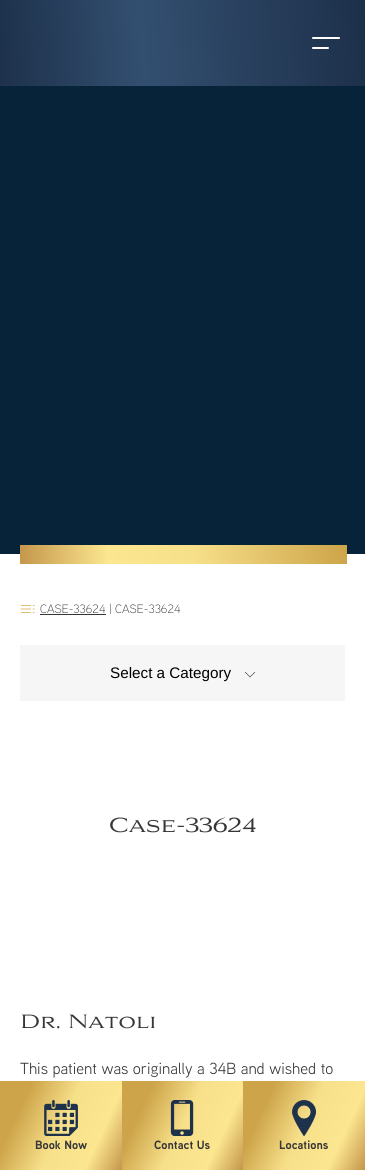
import math
import cairo

surface = cairo.ImageSurface(cairo.FORMAT_RGB24, 365, 1170)
ctx = cairo.Context(surface)
options = cairo.FontOptions()
options.set_hint_metrics(cairo.HINT_METRICS_OFF)
options.set_hint_style(cairo.HINT_STYLE_NONE)
ctx.set_font_options(options)
ctx.set_miter_limit(4)


def round_rect(x, y, w, h, r):
    ctx.new_sub_path()
    for i, (u, v) in enumerate([(x + w - r, y + h - r), (x + r, y + h - r), (x + r, y + r), (x + w - r, y + r)]):
        ctx.arc(u, v, r, i * math.pi / 2, (i + 1) * math.pi / 2)
    ctx.close_path()


def picture(path, x, y, w, h):
    ctx.save()
    ctx.set_source_surface(cairo.ImageSurface.create_from_png(path), x, y)
    ctx.rectangle(x, y, w, h)
    ctx.fill()
    ctx.restore()


ctx.set_source_rgb(1, 1, 1)
ctx.paint()
gradient = cairo.LinearGradient(-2.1, 55, 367, 30)
gradient.add_color_stop_rgba(0, 0.114, 0.192, 0.294, 1)
gradient.add_color_stop_rgba(0.39, 0.2, 0.31, 0.439, 1)
gradient.add_color_stop_rgba(1, 0.114, 0.188, 0.29, 1)
ctx.set_source(gradient)
ctx.rectangle(0, 0, 365, 85)
ctx.fill()
gradient = cairo.LinearGradient(-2.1, 140, 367, 115)
gradient.add_color_stop_rgba(0, 0.114, 0.192, 0.294, 1)
gradient.add_color_stop_rgba(0.39, 0.2, 0.31, 0.439, 1)
gradient.add_color_stop_rgba(1, 0.114, 0.188, 0.29, 1)
ctx.set_source(gradient)
ctx.rectangle(0, 85, 365, 1)
ctx.fill()
ctx.set_source_rgb(1, 1, 1)
round_rect(312, 47, 17, 2, 1)
ctx.fill()
round_rect(312, 37, 28, 2, 1)
ctx.fill()
ctx.set_source_rgb(0.027, 0.137, 0.224)
ctx.rectangle(0, 86, 365, 468)
ctx.fill()
gradient = cairo.LinearGradient(20, 566, 346, 543)
gradient.add_color_stop_rgba(0, 0.769, 0.588, 0.294, 1)
gradient.add_color_stop_rgba(0.27, 0.988, 0.902, 0.565, 1)
gradient.add_color_stop_rgba(0.53, 0.969, 0.878, 0.541, 1)
gradient.add_color_stop_rgba(1, 0.804, 0.643, 0.286, 1)
ctx.set_source(gradient)
ctx.rectangle(20, 545, 327, 19)
ctx.fill()
picture("img1.png", 20, 605, 15, 8)
ctx.select_font_face("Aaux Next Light")
ctx.set_font_size(12.1)
ctx.set_source_rgb(0.212, 0.212, 0.212)
ctx.move_to(40, 613)
ctx.show_text("CASE-33624 | CASE-33624")
ctx.rectangle(40, 614, 66, 1)
ctx.fill()
ctx.set_source_rgb(0.961, 0.961, 0.961)
ctx.rectangle(20, 645, 325, 56)
ctx.fill()
ctx.select_font_face("Liberation Sans")
ctx.set_font_size(15.25)
ctx.set_source_rgb(0, 0, 0)
ctx.move_to(110, 678)
ctx.show_text("Select a Category")
ctx.new_path()
ctx.move_to(245, 672)
ctx.line_to(250, 677)
ctx.line_to(255, 672)
ctx.set_source_rgb(0.184, 0.184, 0.184)
ctx.set_line_width(0.6)
ctx.stroke()
ctx.select_font_face("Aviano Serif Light")
ctx.set_font_size(19)
ctx.set_source_rgb(0.212, 0.212, 0.212)
ctx.move_to(109, 832)
ctx.show_text("Case-33624")
ctx.set_font_size(18)
ctx.move_to(20, 1028)
ctx.show_text("Dr. Natoli")
ctx.select_font_face("Aaux Next")
ctx.set_font_size(16.1)
ctx.move_to(20, 1074)
ctx.show_text("This patient was originally a 34B and wished to")
gradient = cairo.LinearGradient(128, 1157, -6.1, 1094)
gradient.add_color_stop_rgba(0, 0.769, 0.588, 0.294, 1)
gradient.add_color_stop_rgba(0.23, 0.988, 0.902, 0.565, 1)
gradient.add_color_stop_rgba(0.5, 0.969, 0.878, 0.541, 1)
gradient.add_color_stop_rgba(0.8, 0.804, 0.643, 0.286, 1)
ctx.set_source(gradient)
ctx.rectangle(0, 1081, 122, 89)
ctx.fill()
picture("img2.png", 44, 1100, 34, 36)
ctx.select_font_face("Aaux Next", cairo.FONT_SLANT_NORMAL, cairo.FONT_WEIGHT_BOLD)
ctx.set_font_size(12)
ctx.set_source_rgb(0.212, 0.212, 0.212)
ctx.move_to(35, 1149)
ctx.show_text("Book Now")
gradient = cairo.LinearGradient(249, 1157, 116, 1094)
gradient.add_color_stop_rgba(0, 0.769, 0.588, 0.294, 1)
gradient.add_color_stop_rgba(0.23, 0.988, 0.902, 0.565, 1)
gradient.add_color_stop_rgba(0.5, 0.969, 0.878, 0.541, 1)
gradient.add_color_stop_rgba(0.8, 0.804, 0.643, 0.286, 1)
ctx.set_source(gradient)
ctx.rectangle(122, 1081, 121, 89)
ctx.fill()
picture("img3.png", 170, 1100, 24, 36)
ctx.set_source_rgb(0.212, 0.212, 0.212)
ctx.move_to(154, 1149)
ctx.show_text("Contact Us")
gradient = cairo.LinearGradient(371, 1157, 237, 1094)
gradient.add_color_stop_rgba(0, 0.769, 0.588, 0.294, 1)
gradient.add_color_stop_rgba(0.23, 0.988, 0.902, 0.565, 1)
gradient.add_color_stop_rgba(0.5, 0.969, 0.878, 0.541, 1)
gradient.add_color_stop_rgba(0.8, 0.804, 0.643, 0.286, 1)
ctx.set_source(gradient)
ctx.rectangle(243, 1081, 122, 89)
ctx.fill()
picture("img4.png", 292, 1100, 25, 36)
ctx.set_source_rgb(0.212, 0.212, 0.212)
ctx.move_to(279, 1149)
ctx.show_text("Locations")
surface.write_to_png("page.png")
